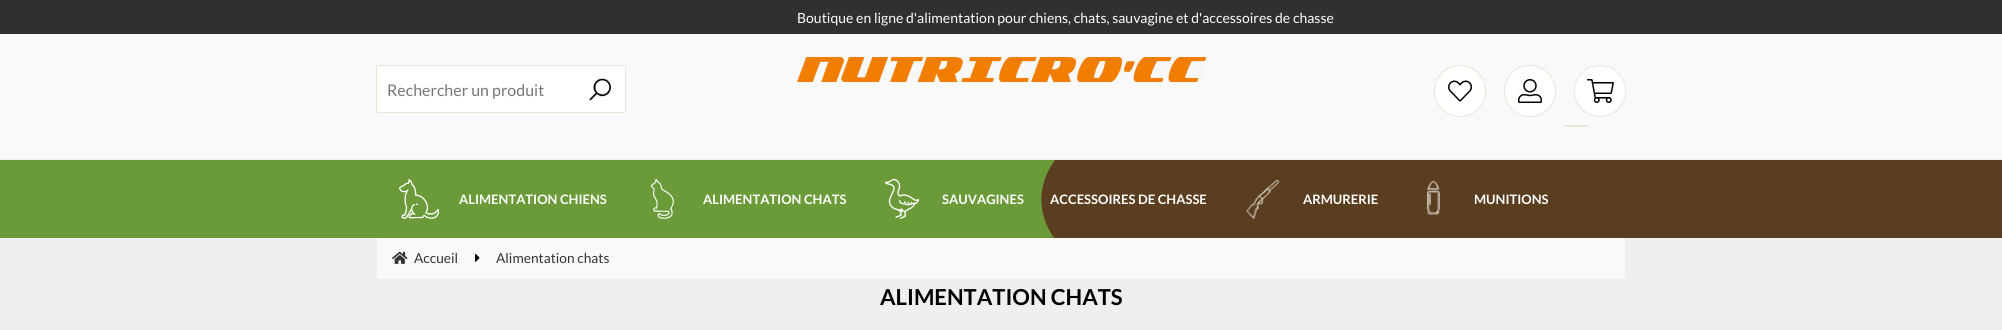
import math
import cairo

surface = cairo.ImageSurface(cairo.FORMAT_RGB24, 2002, 330)
ctx = cairo.Context(surface)
options = cairo.FontOptions()
options.set_hint_metrics(cairo.HINT_METRICS_OFF)
options.set_hint_style(cairo.HINT_STYLE_NONE)
ctx.set_font_options(options)
ctx.set_miter_limit(4)


def round_rect(x, y, w, h, r):
    ctx.new_sub_path()
    for i, (u, v) in enumerate([(x + w - r, y + h - r), (x + r, y + h - r), (x + r, y + r), (x + w - r, y + r)]):
        ctx.arc(u, v, r, i * math.pi / 2, (i + 1) * math.pi / 2)
    ctx.close_path()


def picture(path, x, y, w, h):
    ctx.save()
    ctx.set_source_surface(cairo.ImageSurface.create_from_png(path), x, y)
    ctx.rectangle(x, y, w, h)
    ctx.fill()
    ctx.restore()


ctx.set_source_rgb(0.937, 0.937, 0.937)
ctx.paint()
ctx.set_source_rgb(0.188, 0.188, 0.188)
ctx.rectangle(0, 0, 2002, 34)
ctx.fill()
ctx.select_font_face("Lato")
ctx.set_font_size(14)
ctx.set_source_rgb(1, 1, 1)
ctx.move_to(797, 23)
ctx.show_text("Boutique en ligne d'alimentation pour chiens, chats, sauvagine et d'accessoires de chasse")
ctx.set_source_rgb(0.973, 0.973, 0.973)
ctx.rectangle(0, 35, 2002, 124)
ctx.fill()
picture("img1.png", 797, 57, 409, 25)
ctx.set_source_rgb(1, 1, 1)
ctx.arc(1460, 91, 26, 0, 2 * math.pi)
ctx.fill()
ctx.arc(1460, 91, 25.5, 0, 2 * math.pi)
ctx.set_source_rgba(0.416, 0.608, 0.22, 0.2)
ctx.set_line_width(1)
ctx.stroke()
picture("img2.png", 1448, 80, 24, 22)
ctx.set_source_rgb(1, 1, 1)
ctx.arc(1530, 91, 26, 0, 2 * math.pi)
ctx.fill()
ctx.arc(1530, 91, 25.5, 0, 2 * math.pi)
ctx.set_source_rgba(0.416, 0.608, 0.22, 0.2)
ctx.stroke()
picture("img3.png", 1518, 79, 24, 24)
ctx.set_source_rgb(1, 1, 1)
ctx.arc(1600, 91, 26, 0, 2 * math.pi)
ctx.fill()
ctx.arc(1600, 91, 25.5, 0, 2 * math.pi)
ctx.set_source_rgba(0.416, 0.608, 0.22, 0.2)
ctx.stroke()
picture("img4.png", 1587, 79, 27, 24)
ctx.set_source_rgb(0.882, 0.922, 0.843)
round_rect(1564, 125, 25, 2, 1)
ctx.fill()
ctx.set_source_rgb(1, 1, 1)
round_rect(376.5, 65.5, 249, 47, 1.5)
ctx.fill_preserve()
ctx.set_source_rgb(0.882, 0.922, 0.843)
ctx.stroke()
ctx.set_source_rgb(1, 1, 1)
ctx.new_path()
ctx.move_to(378, 66)
ctx.line_to(575, 66)
ctx.line_to(575, 112)
ctx.line_to(378, 112)
ctx.curve_to(377.5, 112, 377, 111.5, 377, 111)
ctx.line_to(377, 67)
ctx.curve_to(377, 66.5, 377.5, 66, 378, 66)
ctx.close_path()
ctx.fill()
ctx.set_font_size(16)
ctx.set_source_rgb(0.467, 0.467, 0.467)
ctx.move_to(387, 96)
ctx.show_text("Rechercher un produit")
picture("img5.png", 589, 78, 22, 23)
ctx.set_source_rgb(0.416, 0.608, 0.22)
ctx.rectangle(0, 160, 1055, 78)
ctx.fill()
ctx.set_source_rgb(0.357, 0.239, 0.122)
ctx.new_path()
ctx.move_to(1054, 238)
ctx.curve_to(1037, 213, 1037, 185, 1055, 160)
ctx.line_to(2002, 160)
ctx.line_to(2002, 238)
ctx.close_path()
ctx.fill()
picture("img6.png", 399, 179, 40, 40)
ctx.select_font_face("Lato", cairo.FONT_SLANT_NORMAL, cairo.FONT_WEIGHT_BOLD)
ctx.set_font_size(13)
ctx.set_source_rgb(1, 1, 1)
ctx.move_to(459, 204)
ctx.show_text("ALIMENTATION CHIENS")
picture("img7.png", 651, 179, 23, 40)
ctx.move_to(703, 204)
ctx.show_text("ALIMENTATION CHATS")
picture("img8.png", 885, 179, 34, 40)
ctx.move_to(942, 204)
ctx.show_text("SAUVAGINES")
ctx.move_to(1050, 204)
ctx.show_text("ACCESSOIRES DE CHASSE")
picture("img9.png", 1246, 179, 34, 40)
ctx.move_to(1303, 204)
ctx.show_text("ARMURERIE")
picture("img10.png", 1427, 180, 13, 35)
ctx.move_to(1474, 204)
ctx.show_text("MUNITIONS")
ctx.set_source_rgb(0.976, 0.976, 0.976)
ctx.rectangle(377, 238, 1248, 41)
ctx.fill()
picture("img11.png", 392, 251, 16, 13)
ctx.select_font_face("Lato")
ctx.set_font_size(13.75)
ctx.set_source_rgb(0.2, 0.2, 0.2)
ctx.move_to(414, 263)
ctx.show_text("Accueil")
picture("img12.png", 475, 253, 5, 9)
ctx.move_to(496, 263)
ctx.show_text("Alimentation chats")
ctx.select_font_face("Lato", cairo.FONT_SLANT_NORMAL, cairo.FONT_WEIGHT_BOLD)
ctx.set_font_size(22)
ctx.set_source_rgb(0, 0, 0)
ctx.move_to(880, 305)
ctx.show_text("ALIMENTATION CHATS")
surface.write_to_png("page.png")
